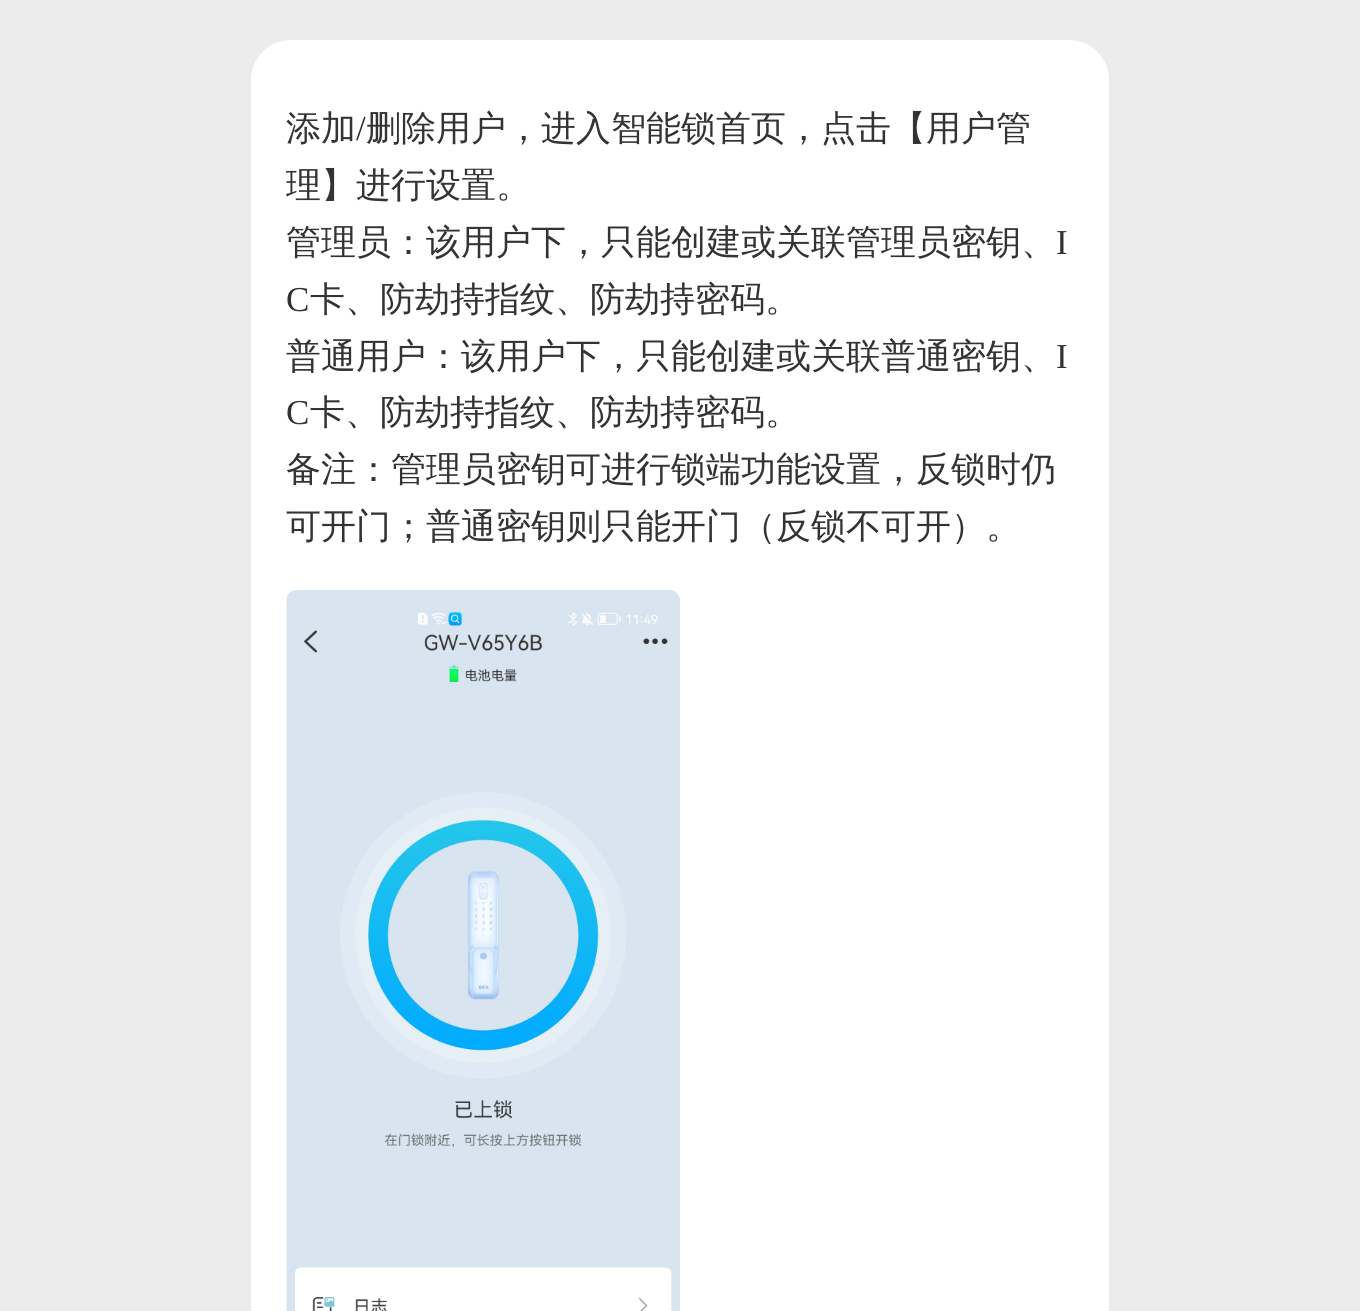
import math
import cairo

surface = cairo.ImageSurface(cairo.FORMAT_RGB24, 1360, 1311)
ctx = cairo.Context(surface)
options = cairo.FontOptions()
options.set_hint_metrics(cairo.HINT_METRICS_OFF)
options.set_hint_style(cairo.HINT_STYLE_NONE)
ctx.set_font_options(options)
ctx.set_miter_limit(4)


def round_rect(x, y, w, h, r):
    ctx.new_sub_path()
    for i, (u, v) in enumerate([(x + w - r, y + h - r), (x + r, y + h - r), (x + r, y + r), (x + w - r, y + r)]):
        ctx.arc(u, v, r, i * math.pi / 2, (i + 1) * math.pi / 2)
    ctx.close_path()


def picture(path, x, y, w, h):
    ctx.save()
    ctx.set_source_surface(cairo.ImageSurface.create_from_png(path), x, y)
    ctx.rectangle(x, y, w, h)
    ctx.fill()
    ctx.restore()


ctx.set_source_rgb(0.922, 0.922, 0.922)
ctx.paint()
ctx.set_source_rgb(1, 1, 1)
round_rect(251, 40, 858, 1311, 40)
ctx.fill()
ctx.select_font_face("WenQuanYi Zen Hei Medium")
ctx.set_font_size(35)
ctx.set_source_rgb(0.2, 0.2, 0.2)
ctx.move_to(286, 140)
ctx.show_text("添加")
ctx.select_font_face("Liberation Serif")
ctx.move_to(356, 140)
ctx.show_text("/")
ctx.select_font_face("WenQuanYi Zen Hei Medium")
ctx.move_to(366, 140)
ctx.show_text("删除用户，进入智能锁首页，点击【用户管")
ctx.move_to(286, 197)
ctx.show_text("理】进行设置。")
ctx.move_to(286, 254)
ctx.show_text("管理员：该用户下，只能创建或关联管理员密钥、")
ctx.select_font_face("Liberation Serif")
ctx.move_to(1056, 254)
ctx.show_text("I")
ctx.move_to(286, 311)
ctx.show_text("C")
ctx.select_font_face("WenQuanYi Zen Hei Medium")
ctx.move_to(310, 311)
ctx.show_text("卡、防劫持指纹、防劫持密码。")
ctx.move_to(286, 368)
ctx.show_text("普通用户：该用户下，只能创建或关联普通密钥、")
ctx.select_font_face("Liberation Serif")
ctx.move_to(1056, 368)
ctx.show_text("I")
ctx.move_to(286, 424)
ctx.show_text("C")
ctx.select_font_face("WenQuanYi Zen Hei Medium")
ctx.move_to(310, 424)
ctx.show_text("卡、防劫持指纹、防劫持密码。")
ctx.move_to(286, 481)
ctx.show_text("备注：管理员密钥可进行锁端功能设置，反锁时仍")
ctx.move_to(286, 538)
ctx.show_text("可开门；普通密钥则只能开门（反锁不可开）。")
picture("img1.png", 286, 590, 394, 721)
surface.write_to_png("page.png")
